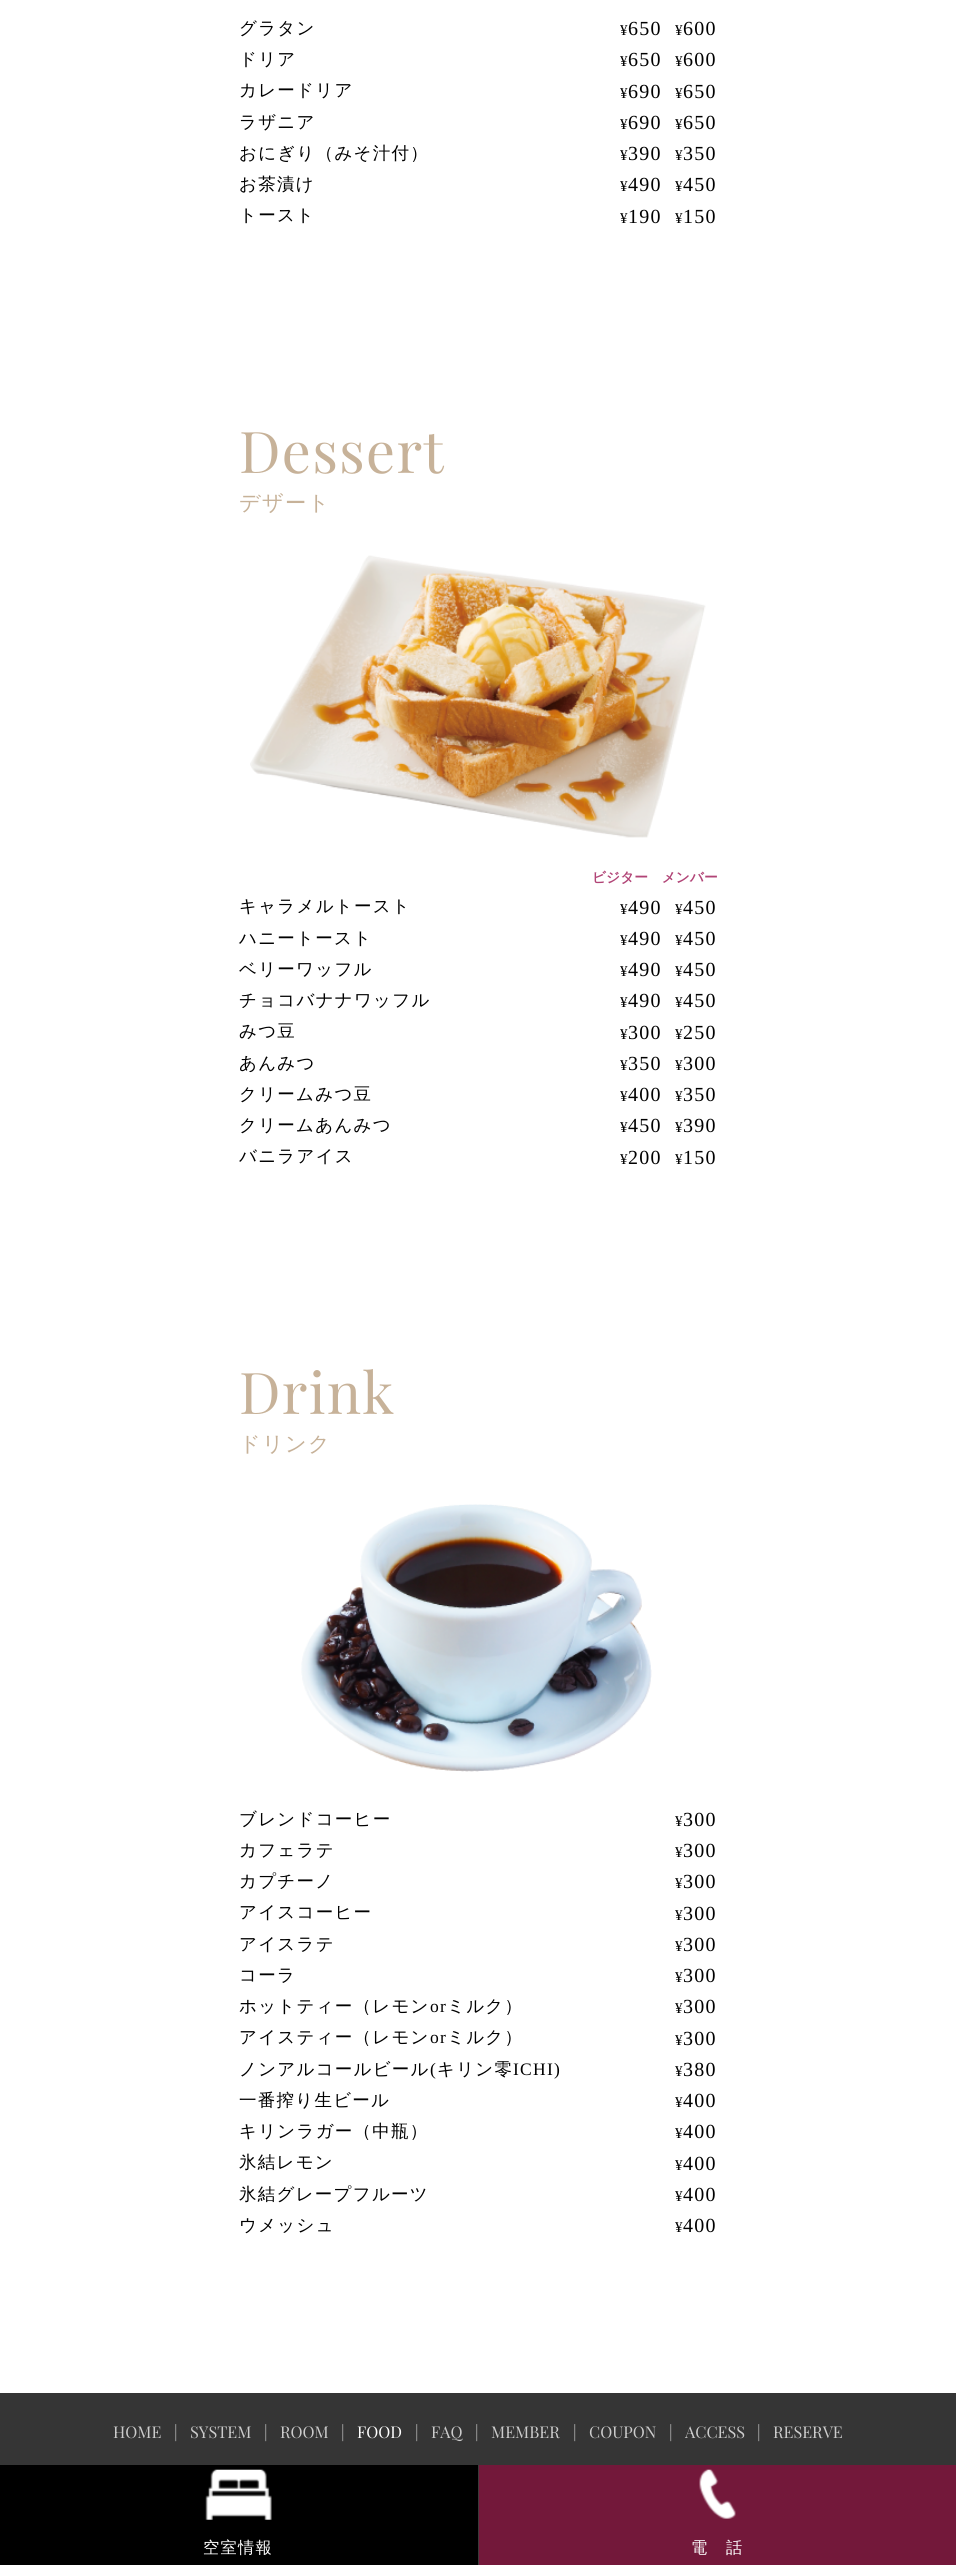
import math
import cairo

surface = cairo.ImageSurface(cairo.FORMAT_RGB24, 956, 2565)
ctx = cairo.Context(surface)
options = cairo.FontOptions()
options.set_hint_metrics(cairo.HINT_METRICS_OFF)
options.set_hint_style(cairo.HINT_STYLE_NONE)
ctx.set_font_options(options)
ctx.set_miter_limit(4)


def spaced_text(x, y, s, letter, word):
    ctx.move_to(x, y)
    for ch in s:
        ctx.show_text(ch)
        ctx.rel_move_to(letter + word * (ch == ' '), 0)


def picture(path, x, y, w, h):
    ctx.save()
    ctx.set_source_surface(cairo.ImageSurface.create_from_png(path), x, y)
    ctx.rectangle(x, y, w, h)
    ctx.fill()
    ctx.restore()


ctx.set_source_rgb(1, 1, 1)
ctx.paint()
ctx.select_font_face("WenQuanYi Zen Hei Medium")
ctx.set_font_size(17.5)
ctx.set_source_rgb(0, 0, 0)
spaced_text(239, 34, "グラタン", 1.25, 0)
ctx.select_font_face("Liberation Serif")
ctx.set_font_size(15)
spaced_text(620, 35, "¥", 1.25, 0)
ctx.set_font_size(20)
spaced_text(628, 35, "650", 1.25, 0)
ctx.set_font_size(15)
spaced_text(675, 35, "¥", 1.25, 0)
ctx.set_font_size(20)
spaced_text(683, 35, "600", 1.25, 0)
ctx.select_font_face("WenQuanYi Zen Hei Medium")
ctx.set_font_size(17.5)
spaced_text(239, 65, "ドリア", 1.25, 0)
ctx.select_font_face("Liberation Serif")
ctx.set_font_size(15)
spaced_text(620, 66, "¥", 1.25, 0)
ctx.set_font_size(20)
spaced_text(628, 66, "650", 1.25, 0)
ctx.set_font_size(15)
spaced_text(675, 66, "¥", 1.25, 0)
ctx.set_font_size(20)
spaced_text(683, 66, "600", 1.25, 0)
ctx.select_font_face("WenQuanYi Zen Hei Medium")
ctx.set_font_size(17.5)
spaced_text(239, 96, "カレードリア", 1.25, 0)
ctx.select_font_face("Liberation Serif")
ctx.set_font_size(15)
spaced_text(620, 98, "¥", 1.25, 0)
ctx.set_font_size(20)
spaced_text(628, 98, "690", 1.25, 0)
ctx.set_font_size(15)
spaced_text(675, 98, "¥", 1.25, 0)
ctx.set_font_size(20)
spaced_text(683, 98, "650", 1.25, 0)
ctx.select_font_face("WenQuanYi Zen Hei Medium")
ctx.set_font_size(17.5)
spaced_text(239, 128, "ラザニア", 1.25, 0)
ctx.select_font_face("Liberation Serif")
ctx.set_font_size(15)
spaced_text(620, 129, "¥", 1.25, 0)
ctx.set_font_size(20)
spaced_text(628, 129, "690", 1.25, 0)
ctx.set_font_size(15)
spaced_text(675, 129, "¥", 1.25, 0)
ctx.set_font_size(20)
spaced_text(683, 129, "650", 1.25, 0)
ctx.select_font_face("WenQuanYi Zen Hei Medium")
ctx.set_font_size(17.5)
spaced_text(239, 159, "おにぎり（みそ汁付）", 1.25, 0)
ctx.select_font_face("Liberation Serif")
ctx.set_font_size(15)
spaced_text(620, 160, "¥", 1.25, 0)
ctx.set_font_size(20)
spaced_text(628, 160, "390", 1.25, 0)
ctx.set_font_size(15)
spaced_text(675, 160, "¥", 1.25, 0)
ctx.set_font_size(20)
spaced_text(683, 160, "350", 1.25, 0)
ctx.select_font_face("WenQuanYi Zen Hei Medium")
ctx.set_font_size(17.5)
spaced_text(239, 190, "お茶漬け", 1.25, 0)
ctx.select_font_face("Liberation Serif")
ctx.set_font_size(15)
spaced_text(620, 191, "¥", 1.25, 0)
ctx.set_font_size(20)
spaced_text(628, 191, "490", 1.25, 0)
ctx.set_font_size(15)
spaced_text(675, 191, "¥", 1.25, 0)
ctx.set_font_size(20)
spaced_text(683, 191, "450", 1.25, 0)
ctx.select_font_face("WenQuanYi Zen Hei Medium")
ctx.set_font_size(17.5)
spaced_text(239, 221, "トースト", 1.25, 0)
ctx.select_font_face("Liberation Serif")
ctx.set_font_size(15)
spaced_text(620, 223, "¥", 1.25, 0)
ctx.set_font_size(20)
spaced_text(628, 223, "190", 1.25, 0)
ctx.set_font_size(15)
spaced_text(675, 223, "¥", 1.25, 0)
ctx.set_font_size(20)
spaced_text(683, 223, "150", 1.25, 0)
ctx.select_font_face("Playfair Display")
ctx.set_font_size(57.5)
ctx.set_source_rgb(0.78, 0.698, 0.6)
spaced_text(239, 473, "Dessert", 1.25, 0)
ctx.select_font_face("WenQuanYi Zen Hei Medium")
ctx.set_font_size(21.25)
spaced_text(239, 510, "デザート", 1.25, 0)
picture("img1.png", 250, 555, 456, 283)
ctx.select_font_face("WenQuanYi Zen Hei", cairo.FONT_SLANT_NORMAL, cairo.FONT_WEIGHT_BOLD)
ctx.set_font_size(13.75)
ctx.set_source_rgb(0.694, 0.267, 0.463)
ctx.move_to(592, 882)
ctx.show_text("ビジター　メンバー")
ctx.select_font_face("WenQuanYi Zen Hei Medium")
ctx.set_font_size(17.5)
ctx.set_source_rgb(0, 0, 0)
spaced_text(239, 912, "キャラメルトースト", 1.25, 0)
ctx.select_font_face("Liberation Serif")
ctx.set_font_size(15)
spaced_text(620, 914, "¥", 1.25, 0)
ctx.set_font_size(20)
spaced_text(628, 914, "490", 1.25, 0)
ctx.set_font_size(15)
spaced_text(675, 914, "¥", 1.25, 0)
ctx.set_font_size(20)
spaced_text(683, 914, "450", 1.25, 0)
ctx.select_font_face("WenQuanYi Zen Hei Medium")
ctx.set_font_size(17.5)
spaced_text(239, 944, "ハニートースト", 1.25, 0)
ctx.select_font_face("Liberation Serif")
ctx.set_font_size(15)
spaced_text(620, 945, "¥", 1.25, 0)
ctx.set_font_size(20)
spaced_text(628, 945, "490", 1.25, 0)
ctx.set_font_size(15)
spaced_text(675, 945, "¥", 1.25, 0)
ctx.set_font_size(20)
spaced_text(683, 945, "450", 1.25, 0)
ctx.select_font_face("WenQuanYi Zen Hei Medium")
ctx.set_font_size(17.5)
spaced_text(239, 975, "ベリーワッフル", 1.25, 0)
ctx.select_font_face("Liberation Serif")
ctx.set_font_size(15)
spaced_text(620, 976, "¥", 1.25, 0)
ctx.set_font_size(20)
spaced_text(628, 976, "490", 1.25, 0)
ctx.set_font_size(15)
spaced_text(675, 976, "¥", 1.25, 0)
ctx.set_font_size(20)
spaced_text(683, 976, "450", 1.25, 0)
ctx.select_font_face("WenQuanYi Zen Hei Medium")
ctx.set_font_size(17.5)
spaced_text(239, 1006, "チョコバナナワッフル", 1.25, 0)
ctx.select_font_face("Liberation Serif")
ctx.set_font_size(15)
spaced_text(620, 1007, "¥", 1.25, 0)
ctx.set_font_size(20)
spaced_text(628, 1007, "490", 1.25, 0)
ctx.set_font_size(15)
spaced_text(675, 1007, "¥", 1.25, 0)
ctx.set_font_size(20)
spaced_text(683, 1007, "450", 1.25, 0)
ctx.select_font_face("WenQuanYi Zen Hei Medium")
ctx.set_font_size(17.5)
spaced_text(239, 1037, "みつ豆", 1.25, 0)
ctx.select_font_face("Liberation Serif")
ctx.set_font_size(15)
spaced_text(620, 1039, "¥", 1.25, 0)
ctx.set_font_size(20)
spaced_text(628, 1039, "300", 1.25, 0)
ctx.set_font_size(15)
spaced_text(675, 1039, "¥", 1.25, 0)
ctx.set_font_size(20)
spaced_text(683, 1039, "250", 1.25, 0)
ctx.select_font_face("WenQuanYi Zen Hei Medium")
ctx.set_font_size(17.5)
spaced_text(239, 1069, "あんみつ", 1.25, 0)
ctx.select_font_face("Liberation Serif")
ctx.set_font_size(15)
spaced_text(620, 1070, "¥", 1.25, 0)
ctx.set_font_size(20)
spaced_text(628, 1070, "350", 1.25, 0)
ctx.set_font_size(15)
spaced_text(675, 1070, "¥", 1.25, 0)
ctx.set_font_size(20)
spaced_text(683, 1070, "300", 1.25, 0)
ctx.select_font_face("WenQuanYi Zen Hei Medium")
ctx.set_font_size(17.5)
spaced_text(239, 1100, "クリームみつ豆", 1.25, 0)
ctx.select_font_face("Liberation Serif")
ctx.set_font_size(15)
spaced_text(620, 1101, "¥", 1.25, 0)
ctx.set_font_size(20)
spaced_text(628, 1101, "400", 1.25, 0)
ctx.set_font_size(15)
spaced_text(675, 1101, "¥", 1.25, 0)
ctx.set_font_size(20)
spaced_text(683, 1101, "350", 1.25, 0)
ctx.select_font_face("WenQuanYi Zen Hei Medium")
ctx.set_font_size(17.5)
spaced_text(239, 1131, "クリームあんみつ", 1.25, 0)
ctx.select_font_face("Liberation Serif")
ctx.set_font_size(15)
spaced_text(620, 1132, "¥", 1.25, 0)
ctx.set_font_size(20)
spaced_text(628, 1132, "450", 1.25, 0)
ctx.set_font_size(15)
spaced_text(675, 1132, "¥", 1.25, 0)
ctx.set_font_size(20)
spaced_text(683, 1132, "390", 1.25, 0)
ctx.select_font_face("WenQuanYi Zen Hei Medium")
ctx.set_font_size(17.5)
spaced_text(239, 1162, "バニラアイス", 1.25, 0)
ctx.select_font_face("Liberation Serif")
ctx.set_font_size(15)
spaced_text(620, 1164, "¥", 1.25, 0)
ctx.set_font_size(20)
spaced_text(628, 1164, "200", 1.25, 0)
ctx.set_font_size(15)
spaced_text(675, 1164, "¥", 1.25, 0)
ctx.set_font_size(20)
spaced_text(683, 1164, "150", 1.25, 0)
ctx.select_font_face("Playfair Display")
ctx.set_font_size(57.5)
ctx.set_source_rgb(0.78, 0.698, 0.6)
spaced_text(239, 1414, "Drink", 1.25, 0)
ctx.select_font_face("WenQuanYi Zen Hei Medium")
ctx.set_font_size(21.25)
spaced_text(239, 1451, "ドリンク", 1.25, 0)
picture("img2.png", 301, 1504, 351, 268)
ctx.set_font_size(17.5)
ctx.set_source_rgb(0, 0, 0)
spaced_text(239, 1825, "ブレンドコーヒー", 1.25, 0)
ctx.select_font_face("Liberation Serif")
ctx.set_font_size(15)
spaced_text(675, 1826, "¥", 1.25, 0)
ctx.set_font_size(20)
spaced_text(683, 1826, "300", 1.25, 0)
ctx.select_font_face("WenQuanYi Zen Hei Medium")
ctx.set_font_size(17.5)
spaced_text(239, 1856, "カフェラテ", 1.25, 0)
ctx.select_font_face("Liberation Serif")
ctx.set_font_size(15)
spaced_text(675, 1857, "¥", 1.25, 0)
ctx.set_font_size(20)
spaced_text(683, 1857, "300", 1.25, 0)
ctx.select_font_face("WenQuanYi Zen Hei Medium")
ctx.set_font_size(17.5)
spaced_text(239, 1887, "カプチーノ", 1.25, 0)
ctx.select_font_face("Liberation Serif")
ctx.set_font_size(15)
spaced_text(675, 1888, "¥", 1.25, 0)
ctx.set_font_size(20)
spaced_text(683, 1888, "300", 1.25, 0)
ctx.select_font_face("WenQuanYi Zen Hei Medium")
ctx.set_font_size(17.5)
spaced_text(239, 1918, "アイスコーヒー", 1.25, 0)
ctx.select_font_face("Liberation Serif")
ctx.set_font_size(15)
spaced_text(675, 1920, "¥", 1.25, 0)
ctx.set_font_size(20)
spaced_text(683, 1920, "300", 1.25, 0)
ctx.select_font_face("WenQuanYi Zen Hei Medium")
ctx.set_font_size(17.5)
spaced_text(239, 1950, "アイスラテ", 1.25, 0)
ctx.select_font_face("Liberation Serif")
ctx.set_font_size(15)
spaced_text(675, 1951, "¥", 1.25, 0)
ctx.set_font_size(20)
spaced_text(683, 1951, "300", 1.25, 0)
ctx.select_font_face("WenQuanYi Zen Hei Medium")
ctx.set_font_size(17.5)
spaced_text(239, 1981, "コーラ", 1.25, 0)
ctx.select_font_face("Liberation Serif")
ctx.set_font_size(15)
spaced_text(675, 1982, "¥", 1.25, 0)
ctx.set_font_size(20)
spaced_text(683, 1982, "300", 1.25, 0)
ctx.select_font_face("WenQuanYi Zen Hei Medium")
ctx.set_font_size(17.5)
spaced_text(239, 2012, "ホットティー（レモン", 1.25, 0)
ctx.select_font_face("Liberation Serif")
spaced_text(430, 2012, "or", 1.25, 0)
ctx.select_font_face("WenQuanYi Zen Hei Medium")
spaced_text(447, 2012, "ミルク）", 1.25, 0)
ctx.select_font_face("Liberation Serif")
ctx.set_font_size(15)
spaced_text(675, 2013, "¥", 1.25, 0)
ctx.set_font_size(20)
spaced_text(683, 2013, "300", 1.25, 0)
ctx.select_font_face("WenQuanYi Zen Hei Medium")
ctx.set_font_size(17.5)
spaced_text(239, 2043, "アイスティー（レモン", 1.25, 0)
ctx.select_font_face("Liberation Serif")
spaced_text(430, 2043, "or", 1.25, 0)
ctx.select_font_face("WenQuanYi Zen Hei Medium")
spaced_text(447, 2043, "ミルク）", 1.25, 0)
ctx.select_font_face("Liberation Serif")
ctx.set_font_size(15)
spaced_text(675, 2045, "¥", 1.25, 0)
ctx.set_font_size(20)
spaced_text(683, 2045, "300", 1.25, 0)
ctx.select_font_face("WenQuanYi Zen Hei Medium")
ctx.set_font_size(17.5)
spaced_text(239, 2075, "ノンアルコールビール", 1.25, 0)
ctx.select_font_face("Liberation Serif")
spaced_text(430, 2075, "(", 1.25, 0)
ctx.select_font_face("WenQuanYi Zen Hei Medium")
spaced_text(437, 2075, "キリン零", 1.25, 0)
ctx.select_font_face("Liberation Serif")
spaced_text(513, 2075, "ICHI)", 1.25, 0)
ctx.set_font_size(15)
spaced_text(675, 2076, "¥", 1.25, 0)
ctx.set_font_size(20)
spaced_text(683, 2076, "380", 1.25, 0)
ctx.select_font_face("WenQuanYi Zen Hei Medium")
ctx.set_font_size(17.5)
spaced_text(239, 2106, "一番搾り生ビール", 1.25, 0)
ctx.select_font_face("Liberation Serif")
ctx.set_font_size(15)
spaced_text(675, 2107, "¥", 1.25, 0)
ctx.set_font_size(20)
spaced_text(683, 2107, "400", 1.25, 0)
ctx.select_font_face("WenQuanYi Zen Hei Medium")
ctx.set_font_size(17.5)
spaced_text(239, 2137, "キリンラガー（中瓶）", 1.25, 0)
ctx.select_font_face("Liberation Serif")
ctx.set_font_size(15)
spaced_text(675, 2138, "¥", 1.25, 0)
ctx.set_font_size(20)
spaced_text(683, 2138, "400", 1.25, 0)
ctx.select_font_face("WenQuanYi Zen Hei Medium")
ctx.set_font_size(17.5)
spaced_text(239, 2168, "氷結レモン", 1.25, 0)
ctx.select_font_face("Liberation Serif")
ctx.set_font_size(15)
spaced_text(675, 2170, "¥", 1.25, 0)
ctx.set_font_size(20)
spaced_text(683, 2170, "400", 1.25, 0)
ctx.select_font_face("WenQuanYi Zen Hei Medium")
ctx.set_font_size(17.5)
spaced_text(239, 2200, "氷結グレープフルーツ", 1.25, 0)
ctx.select_font_face("Liberation Serif")
ctx.set_font_size(15)
spaced_text(675, 2201, "¥", 1.25, 0)
ctx.set_font_size(20)
spaced_text(683, 2201, "400", 1.25, 0)
ctx.select_font_face("WenQuanYi Zen Hei Medium")
ctx.set_font_size(17.5)
spaced_text(239, 2231, "ウメッシュ", 1.25, 0)
ctx.select_font_face("Liberation Serif")
ctx.set_font_size(15)
spaced_text(675, 2232, "¥", 1.25, 0)
ctx.set_font_size(20)
spaced_text(683, 2232, "400", 1.25, 0)
ctx.set_source_rgb(0.208, 0.208, 0.208)
ctx.rectangle(0, 2393, 956, 72)
ctx.fill()
ctx.select_font_face("Playfair Display")
ctx.set_font_size(16.25)
ctx.set_source_rgb(0.8, 0.8, 0.8)
ctx.move_to(113, 2438)
ctx.show_text("HOME")
ctx.move_to(174, 2438)
ctx.show_text("|")
ctx.move_to(190, 2438)
ctx.show_text("SYSTEM")
ctx.move_to(264, 2438)
ctx.show_text("|")
ctx.move_to(280, 2438)
ctx.show_text("ROOM")
ctx.move_to(341, 2438)
ctx.show_text("|")
ctx.set_source_rgb(1, 1, 1)
ctx.move_to(357, 2438)
ctx.show_text("FOOD")
ctx.set_source_rgb(0.8, 0.8, 0.8)
ctx.move_to(415, 2438)
ctx.show_text("|")
ctx.move_to(431, 2438)
ctx.show_text("FAQ")
ctx.move_to(475, 2438)
ctx.show_text("|")
ctx.move_to(491, 2438)
ctx.show_text("MEMBER")
ctx.move_to(573, 2438)
ctx.show_text("|")
ctx.move_to(589, 2438)
ctx.show_text("COUPON")
ctx.move_to(669, 2438)
ctx.show_text("|")
ctx.move_to(685, 2438)
ctx.show_text("ACCESS")
ctx.move_to(757, 2438)
ctx.show_text("|")
ctx.move_to(773, 2438)
ctx.show_text("RESERVE")
ctx.set_source_rgb(0, 0, 0)
ctx.rectangle(0, 2465, 478, 100)
ctx.fill()
ctx.set_source_rgb(0.227, 0.224, 0.224)
ctx.rectangle(478, 2465, 1, 100)
ctx.fill()
picture("img3.png", 205, 2469, 67, 51)
ctx.select_font_face("WenQuanYi Zen Hei Medium")
ctx.set_source_rgb(1, 1, 1)
spaced_text(203, 2553, "空室情報", 1.25, 0)
ctx.set_source_rgb(0.451, 0.094, 0.227)
ctx.rectangle(479, 2465, 477, 100)
ctx.fill()
picture("img4.png", 699, 2469, 37, 50)
ctx.set_source_rgb(1, 1, 1)
spaced_text(691, 2553, "電　話", 1.25, 0)
surface.write_to_png("page.png")
